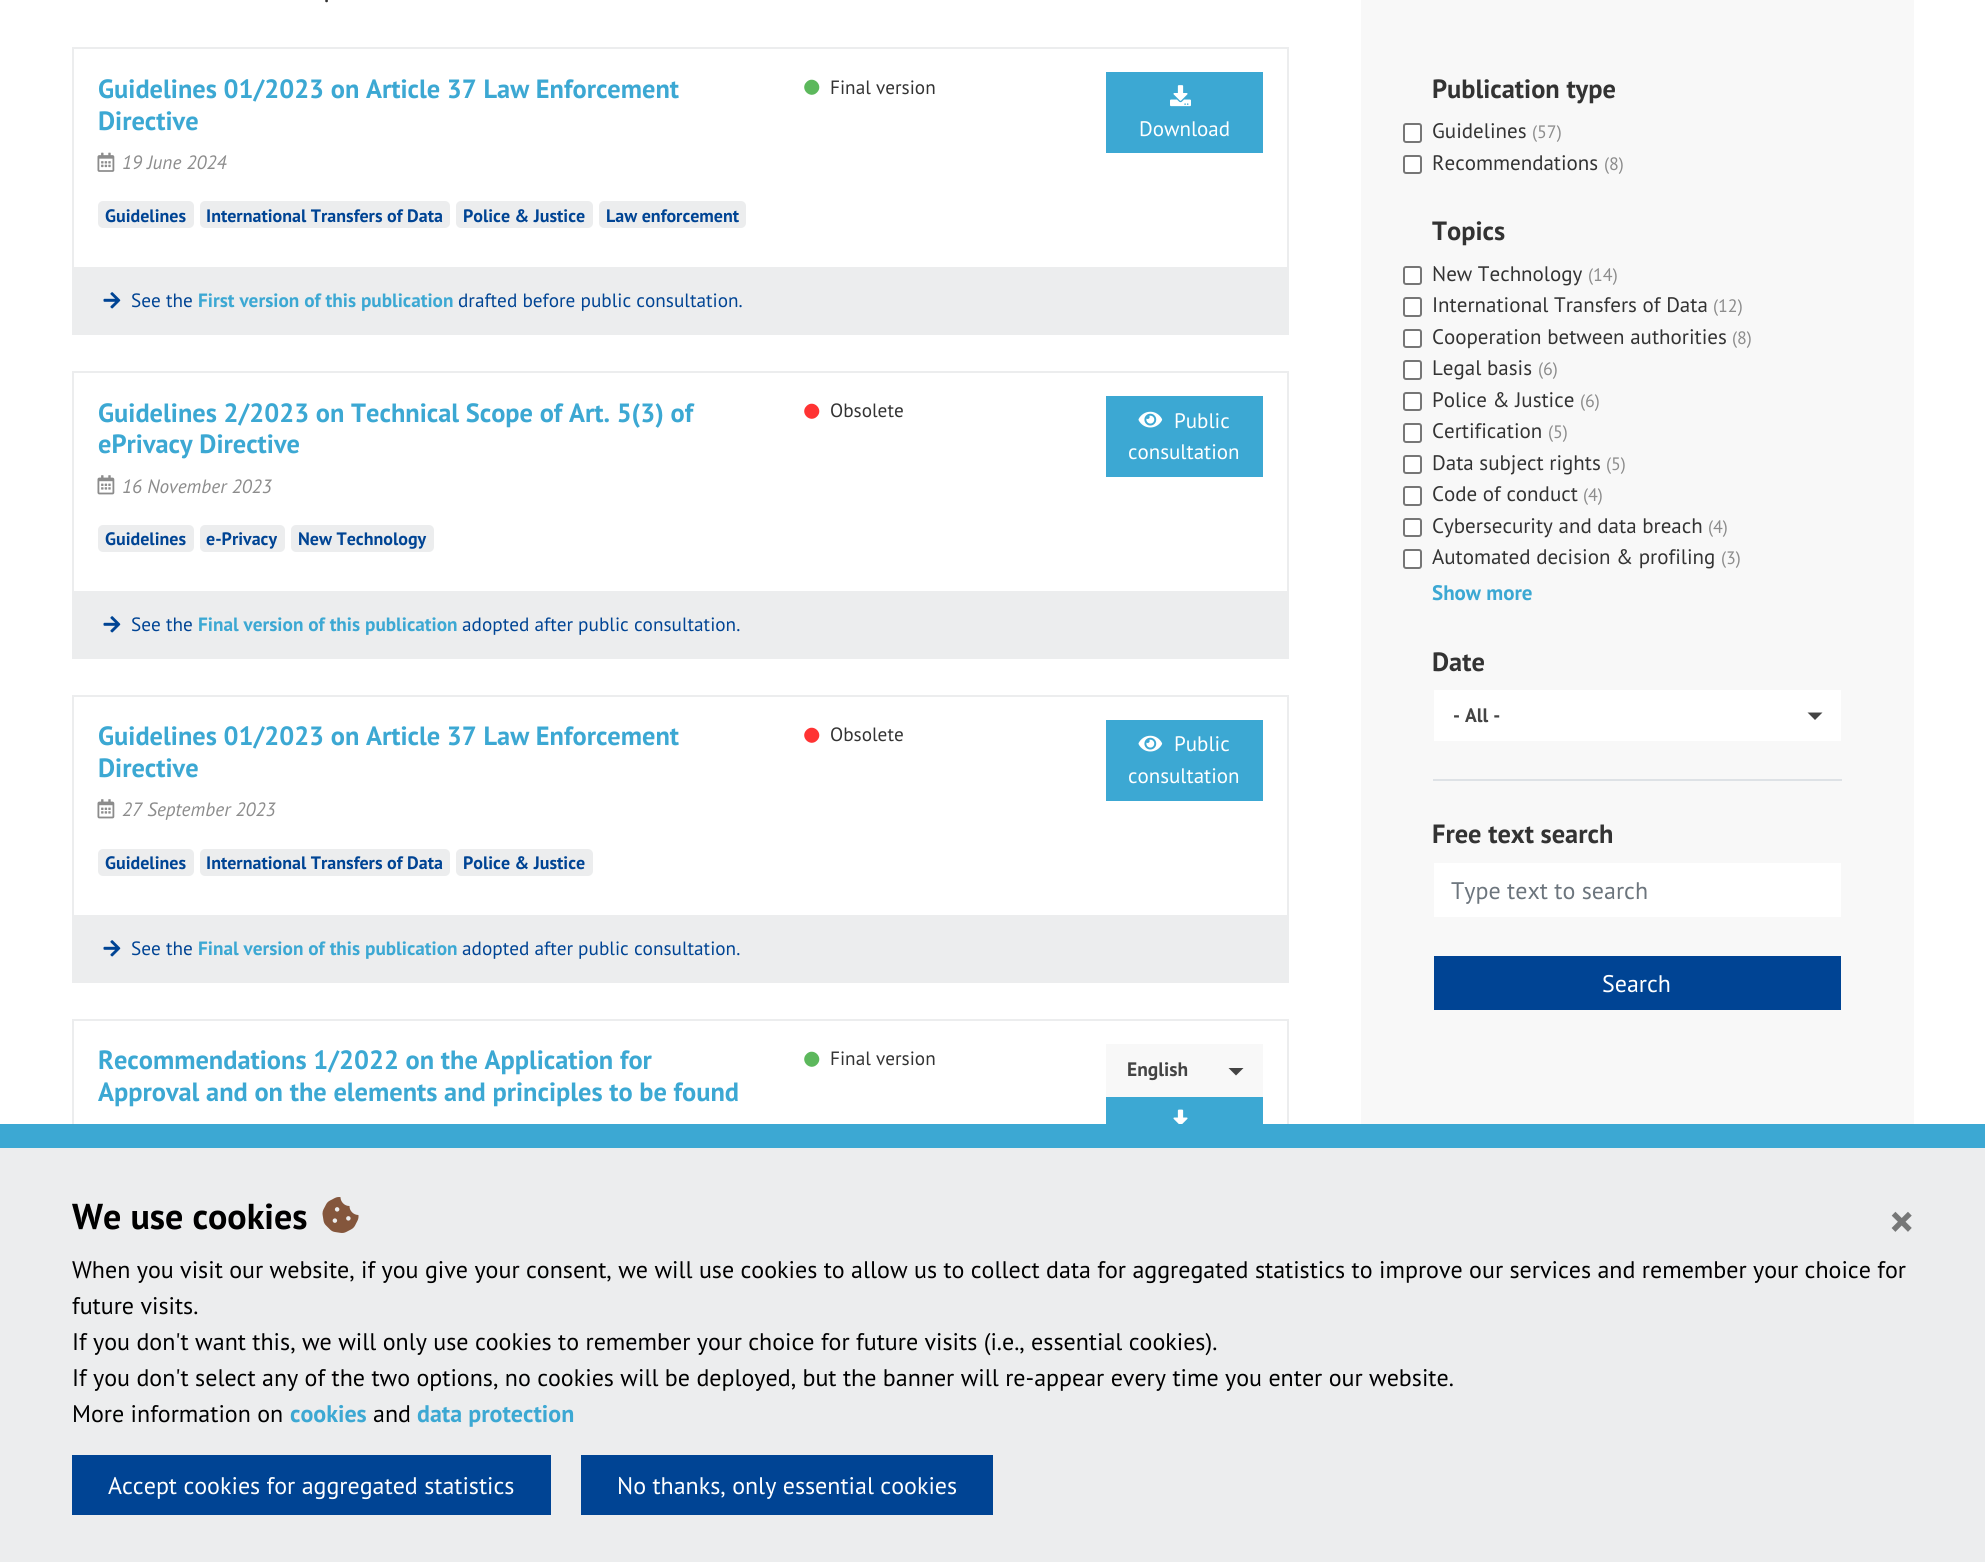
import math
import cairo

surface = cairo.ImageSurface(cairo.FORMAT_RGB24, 1985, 1562)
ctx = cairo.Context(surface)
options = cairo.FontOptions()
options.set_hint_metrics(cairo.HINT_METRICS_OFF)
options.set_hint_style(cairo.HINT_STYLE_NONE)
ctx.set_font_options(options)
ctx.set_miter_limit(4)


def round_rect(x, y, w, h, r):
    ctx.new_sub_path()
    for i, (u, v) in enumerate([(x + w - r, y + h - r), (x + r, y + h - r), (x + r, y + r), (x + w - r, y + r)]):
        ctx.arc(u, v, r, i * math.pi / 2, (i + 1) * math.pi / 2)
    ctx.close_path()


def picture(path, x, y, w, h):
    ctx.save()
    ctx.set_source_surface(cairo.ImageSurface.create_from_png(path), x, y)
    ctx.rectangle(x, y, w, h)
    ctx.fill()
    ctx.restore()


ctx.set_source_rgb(1, 1, 1)
ctx.paint()
ctx.select_font_face("PT Sans")
ctx.set_font_size(24)
ctx.set_source_rgb(0.2, 0.2, 0.2)
ctx.move_to(324, 2)
ctx.show_text(".")
ctx.rectangle(73, 48, 1215, 220)
ctx.set_source_rgb(0.925, 0.929, 0.933)
ctx.stroke()
ctx.select_font_face("PT Sans", cairo.FONT_SLANT_NORMAL, cairo.FONT_WEIGHT_BOLD)
ctx.set_font_size(26.4)
ctx.set_source_rgb(0.235, 0.659, 0.827)
ctx.move_to(98, 98)
ctx.show_text("Guidelines 01/2023 on Article 37 Law Enforcement")
ctx.move_to(98, 130)
ctx.show_text("Directive")
picture("img1.png", 97, 152, 18, 20)
ctx.select_font_face("PT Sans", cairo.FONT_SLANT_ITALIC)
ctx.set_font_size(19.25)
ctx.set_source_rgb(0.549, 0.549, 0.549)
ctx.move_to(122, 169)
ctx.show_text("19 June 2024")
ctx.set_source_rgb(0.925, 0.929, 0.933)
round_rect(98, 201, 96, 27, 5)
ctx.fill()
ctx.select_font_face("PT Sans", cairo.FONT_SLANT_NORMAL, cairo.FONT_WEIGHT_BOLD)
ctx.set_font_size(18)
ctx.set_source_rgb(0, 0.267, 0.58)
ctx.move_to(105, 222)
ctx.show_text("Guidelines")
ctx.set_source_rgb(0.925, 0.929, 0.933)
round_rect(200, 201, 250, 27, 5)
ctx.fill()
ctx.set_source_rgb(0, 0.267, 0.58)
ctx.move_to(206, 222)
ctx.show_text("International Transfers of Data")
ctx.set_source_rgb(0.925, 0.929, 0.933)
round_rect(456, 201, 137, 27, 5)
ctx.fill()
ctx.set_source_rgb(0, 0.267, 0.58)
ctx.move_to(463, 222)
ctx.show_text("Police & Justice")
ctx.set_source_rgb(0.925, 0.929, 0.933)
round_rect(599, 201, 147, 27, 5)
ctx.fill()
ctx.set_source_rgb(0, 0.267, 0.58)
ctx.move_to(606, 222)
ctx.show_text("Law enforcement")
ctx.set_source_rgb(0.361, 0.722, 0.361)
ctx.new_path()
ctx.move_to(806.5, 82)
ctx.curve_to(813.5, 75, 824, 85.5, 817, 92.5)
ctx.curve_to(810, 99.5, 799.5, 89, 806.5, 82)
ctx.close_path()
ctx.fill()
ctx.select_font_face("PT Sans")
ctx.set_font_size(19.25)
ctx.set_source_rgb(0.2, 0.2, 0.2)
ctx.move_to(830, 94)
ctx.show_text("Final version")
ctx.set_source_rgb(0.235, 0.659, 0.827)
ctx.rectangle(1106, 72, 157, 81)
ctx.fill()
picture("img2.png", 1170, 85, 21, 22)
ctx.set_font_size(21)
ctx.set_source_rgb(1, 1, 1)
ctx.move_to(1139, 136)
ctx.show_text("Download")
ctx.set_source_rgb(0.925, 0.929, 0.933)
ctx.rectangle(72, 269, 1217, 66)
ctx.fill()
picture("img3.png", 103, 292, 18, 17)
ctx.set_font_size(19.25)
ctx.set_source_rgb(0, 0.267, 0.58)
ctx.move_to(131, 307)
ctx.show_text("See the")
ctx.select_font_face("PT Sans", cairo.FONT_SLANT_NORMAL, cairo.FONT_WEIGHT_BOLD)
ctx.set_source_rgb(0.235, 0.659, 0.827)
ctx.move_to(198, 307)
ctx.show_text("First version of this publication")
ctx.select_font_face("PT Sans")
ctx.set_source_rgb(0, 0.267, 0.58)
ctx.move_to(458, 307)
ctx.show_text("drafted before public consultation.")
ctx.rectangle(73, 372, 1215, 220)
ctx.set_source_rgb(0.925, 0.929, 0.933)
ctx.stroke()
ctx.select_font_face("PT Sans", cairo.FONT_SLANT_NORMAL, cairo.FONT_WEIGHT_BOLD)
ctx.set_font_size(26.4)
ctx.set_source_rgb(0.235, 0.659, 0.827)
ctx.move_to(98, 422)
ctx.show_text("Guidelines 2/2023 on Technical Scope of Art. 5(3) of")
ctx.move_to(98, 453)
ctx.show_text("ePrivacy Directive")
picture("img4.png", 97, 475, 18, 20)
ctx.select_font_face("PT Sans", cairo.FONT_SLANT_ITALIC)
ctx.set_font_size(19.25)
ctx.set_source_rgb(0.549, 0.549, 0.549)
ctx.move_to(122, 493)
ctx.show_text("16 November 2023")
ctx.set_source_rgb(0.925, 0.929, 0.933)
round_rect(98, 525, 96, 27, 5)
ctx.fill()
ctx.select_font_face("PT Sans", cairo.FONT_SLANT_NORMAL, cairo.FONT_WEIGHT_BOLD)
ctx.set_font_size(18)
ctx.set_source_rgb(0, 0.267, 0.58)
ctx.move_to(105, 545)
ctx.show_text("Guidelines")
ctx.set_source_rgb(0.925, 0.929, 0.933)
round_rect(200, 525, 85, 27, 5)
ctx.fill()
ctx.set_source_rgb(0, 0.267, 0.58)
ctx.move_to(206, 545)
ctx.show_text("e-Privacy")
ctx.set_source_rgb(0.925, 0.929, 0.933)
round_rect(291, 525, 143, 27, 5)
ctx.fill()
ctx.set_source_rgb(0, 0.267, 0.58)
ctx.move_to(298, 545)
ctx.show_text("New Technology")
ctx.set_source_rgb(1, 0.2, 0.2)
ctx.new_path()
ctx.move_to(806.5, 406)
ctx.curve_to(813.5, 399, 824, 409.5, 817, 416.5)
ctx.curve_to(810, 423.5, 799.5, 413, 806.5, 406)
ctx.close_path()
ctx.fill()
ctx.select_font_face("PT Sans")
ctx.set_font_size(19.25)
ctx.set_source_rgb(0.2, 0.2, 0.2)
ctx.move_to(830, 417)
ctx.show_text("Obsolete")
ctx.set_source_rgb(0.235, 0.659, 0.827)
ctx.rectangle(1106, 396, 157, 81)
ctx.fill()
picture("img5.png", 1138, 411, 25, 17)
ctx.set_font_size(21)
ctx.set_source_rgb(1, 1, 1)
ctx.move_to(1174, 428)
ctx.show_text("Public")
ctx.move_to(1128, 459)
ctx.show_text("consultation")
ctx.set_source_rgb(0.925, 0.929, 0.933)
ctx.rectangle(72, 593, 1217, 66)
ctx.fill()
picture("img3.png", 103, 616, 18, 17)
ctx.set_font_size(19.25)
ctx.set_source_rgb(0, 0.267, 0.58)
ctx.move_to(131, 631)
ctx.show_text("See the")
ctx.select_font_face("PT Sans", cairo.FONT_SLANT_NORMAL, cairo.FONT_WEIGHT_BOLD)
ctx.set_source_rgb(0.235, 0.659, 0.827)
ctx.move_to(198, 631)
ctx.show_text("Final version of this publication")
ctx.select_font_face("PT Sans")
ctx.set_source_rgb(0, 0.267, 0.58)
ctx.move_to(462, 631)
ctx.show_text("adopted after public consultation.")
ctx.rectangle(73, 696, 1215, 220)
ctx.set_source_rgb(0.925, 0.929, 0.933)
ctx.stroke()
ctx.select_font_face("PT Sans", cairo.FONT_SLANT_NORMAL, cairo.FONT_WEIGHT_BOLD)
ctx.set_font_size(26.4)
ctx.set_source_rgb(0.235, 0.659, 0.827)
ctx.move_to(98, 745)
ctx.show_text("Guidelines 01/2023 on Article 37 Law Enforcement")
ctx.move_to(98, 777)
ctx.show_text("Directive")
picture("img4.png", 97, 799, 18, 20)
ctx.select_font_face("PT Sans", cairo.FONT_SLANT_ITALIC)
ctx.set_font_size(19.25)
ctx.set_source_rgb(0.549, 0.549, 0.549)
ctx.move_to(122, 816)
ctx.show_text("27 September 2023")
ctx.set_source_rgb(0.925, 0.929, 0.933)
round_rect(98, 849, 96, 27, 5)
ctx.fill()
ctx.select_font_face("PT Sans", cairo.FONT_SLANT_NORMAL, cairo.FONT_WEIGHT_BOLD)
ctx.set_font_size(18)
ctx.set_source_rgb(0, 0.267, 0.58)
ctx.move_to(105, 869)
ctx.show_text("Guidelines")
ctx.set_source_rgb(0.925, 0.929, 0.933)
round_rect(200, 849, 250, 27, 5)
ctx.fill()
ctx.set_source_rgb(0, 0.267, 0.58)
ctx.move_to(206, 869)
ctx.show_text("International Transfers of Data")
ctx.set_source_rgb(0.925, 0.929, 0.933)
round_rect(456, 849, 137, 27, 5)
ctx.fill()
ctx.set_source_rgb(0, 0.267, 0.58)
ctx.move_to(463, 869)
ctx.show_text("Police & Justice")
ctx.set_source_rgb(1, 0.2, 0.2)
ctx.new_path()
ctx.move_to(806.5, 730)
ctx.curve_to(813.5, 723, 824, 733.5, 817, 740.5)
ctx.curve_to(810, 747.5, 799.5, 737, 806.5, 730)
ctx.close_path()
ctx.fill()
ctx.select_font_face("PT Sans")
ctx.set_font_size(19.25)
ctx.set_source_rgb(0.2, 0.2, 0.2)
ctx.move_to(830, 741)
ctx.show_text("Obsolete")
ctx.set_source_rgb(0.235, 0.659, 0.827)
ctx.rectangle(1106, 720, 157, 81)
ctx.fill()
picture("img5.png", 1138, 735, 25, 17)
ctx.set_font_size(21)
ctx.set_source_rgb(1, 1, 1)
ctx.move_to(1174, 751)
ctx.show_text("Public")
ctx.move_to(1128, 783)
ctx.show_text("consultation")
ctx.set_source_rgb(0.925, 0.929, 0.933)
ctx.rectangle(72, 917, 1217, 66)
ctx.fill()
picture("img3.png", 103, 940, 18, 17)
ctx.set_font_size(19.25)
ctx.set_source_rgb(0, 0.267, 0.58)
ctx.move_to(131, 955)
ctx.show_text("See the")
ctx.select_font_face("PT Sans", cairo.FONT_SLANT_NORMAL, cairo.FONT_WEIGHT_BOLD)
ctx.set_source_rgb(0.235, 0.659, 0.827)
ctx.move_to(198, 955)
ctx.show_text("Final version of this publication")
ctx.select_font_face("PT Sans")
ctx.set_source_rgb(0, 0.267, 0.58)
ctx.move_to(462, 955)
ctx.show_text("adopted after public consultation.")
ctx.rectangle(73, 1020, 1215, 250)
ctx.set_source_rgb(0.925, 0.929, 0.933)
ctx.stroke()
ctx.select_font_face("PT Sans", cairo.FONT_SLANT_NORMAL, cairo.FONT_WEIGHT_BOLD)
ctx.set_font_size(26.4)
ctx.set_source_rgb(0.235, 0.659, 0.827)
ctx.move_to(98, 1069)
ctx.show_text("Recommendations 1/2022 on the Application for")
ctx.move_to(98, 1101)
ctx.show_text("Approval and on the elements and principles to be found")
ctx.set_source_rgb(0.361, 0.722, 0.361)
ctx.new_path()
ctx.move_to(806.5, 1054)
ctx.curve_to(813.5, 1047, 824, 1057.5, 817, 1064.5)
ctx.curve_to(810, 1071.5, 799.5, 1061, 806.5, 1054)
ctx.close_path()
ctx.fill()
ctx.select_font_face("PT Sans")
ctx.set_font_size(19.25)
ctx.set_source_rgb(0.2, 0.2, 0.2)
ctx.move_to(830, 1065)
ctx.show_text("Final version")
ctx.set_source_rgb(0.969, 0.969, 0.969)
ctx.rectangle(1106, 1044, 157, 53)
ctx.fill()
ctx.select_font_face("PT Sans", cairo.FONT_SLANT_NORMAL, cairo.FONT_WEIGHT_BOLD)
ctx.set_font_size(19.5)
ctx.set_source_rgb(0.267, 0.267, 0.267)
ctx.move_to(1127, 1076)
ctx.show_text("English")
ctx.new_path()
ctx.move_to(1228.5, 1068)
ctx.line_to(1243.5, 1068)
ctx.line_to(1236, 1075.5)
ctx.close_path()
ctx.fill()
ctx.set_source_rgb(0.235, 0.659, 0.827)
ctx.rectangle(1106, 1097, 157, 27)
ctx.fill()
picture("img6.png", 1173, 1109, 15, 15)
ctx.set_source_rgb(0.969, 0.969, 0.969)
ctx.rectangle(1361, 0, 553, 1124)
ctx.fill()
ctx.set_font_size(26.4)
ctx.set_source_rgb(0.2, 0.2, 0.2)
ctx.move_to(1432, 98)
ctx.show_text("Publication type")
ctx.set_source_rgb(1, 1, 1)
round_rect(1404, 124, 17, 18, 2)
ctx.fill_preserve()
ctx.set_source_rgb(0.463, 0.463, 0.463)
ctx.stroke()
ctx.select_font_face("PT Sans")
ctx.set_font_size(21)
ctx.set_source_rgb(0.2, 0.2, 0.2)
ctx.move_to(1432, 138)
ctx.show_text("Guidelines")
ctx.set_font_size(18)
ctx.set_source_rgb(0.549, 0.549, 0.549)
ctx.move_to(1532, 138)
ctx.show_text("(57)")
ctx.set_source_rgb(1, 1, 1)
round_rect(1404, 156, 17, 17, 2)
ctx.fill_preserve()
ctx.set_source_rgb(0.463, 0.463, 0.463)
ctx.stroke()
ctx.set_font_size(21)
ctx.set_source_rgb(0.2, 0.2, 0.2)
ctx.move_to(1432, 170)
ctx.show_text("Recommendations")
ctx.set_font_size(18)
ctx.set_source_rgb(0.549, 0.549, 0.549)
ctx.move_to(1604, 170)
ctx.show_text("(8)")
ctx.select_font_face("PT Sans", cairo.FONT_SLANT_NORMAL, cairo.FONT_WEIGHT_BOLD)
ctx.set_font_size(26.4)
ctx.set_source_rgb(0.2, 0.2, 0.2)
ctx.move_to(1432, 240)
ctx.show_text("Topics")
ctx.set_source_rgb(1, 1, 1)
round_rect(1404, 267, 17, 17, 2)
ctx.fill_preserve()
ctx.set_source_rgb(0.463, 0.463, 0.463)
ctx.stroke()
ctx.select_font_face("PT Sans")
ctx.set_font_size(21)
ctx.set_source_rgb(0.2, 0.2, 0.2)
ctx.move_to(1432, 281)
ctx.show_text("New Technology")
ctx.set_font_size(18)
ctx.set_source_rgb(0.549, 0.549, 0.549)
ctx.move_to(1588, 281)
ctx.show_text("(14)")
ctx.set_source_rgb(1, 1, 1)
round_rect(1404, 298, 17, 18, 2)
ctx.fill_preserve()
ctx.set_source_rgb(0.463, 0.463, 0.463)
ctx.stroke()
ctx.set_font_size(21)
ctx.set_source_rgb(0.2, 0.2, 0.2)
ctx.move_to(1432, 312)
ctx.show_text("International Transfers of Data")
ctx.set_font_size(18)
ctx.set_source_rgb(0.549, 0.549, 0.549)
ctx.move_to(1713, 312)
ctx.show_text("(12)")
ctx.set_source_rgb(1, 1, 1)
round_rect(1404, 330, 17, 17, 2)
ctx.fill_preserve()
ctx.set_source_rgb(0.463, 0.463, 0.463)
ctx.stroke()
ctx.set_font_size(21)
ctx.set_source_rgb(0.2, 0.2, 0.2)
ctx.move_to(1432, 344)
ctx.show_text("Cooperation between authorities")
ctx.set_font_size(18)
ctx.set_source_rgb(0.549, 0.549, 0.549)
ctx.move_to(1732, 344)
ctx.show_text("(8)")
ctx.set_source_rgb(1, 1, 1)
round_rect(1404, 361, 17, 18, 2)
ctx.fill_preserve()
ctx.set_source_rgb(0.463, 0.463, 0.463)
ctx.stroke()
ctx.set_font_size(21)
ctx.set_source_rgb(0.2, 0.2, 0.2)
ctx.move_to(1432, 375)
ctx.show_text("Legal basis")
ctx.set_font_size(18)
ctx.set_source_rgb(0.549, 0.549, 0.549)
ctx.move_to(1538, 375)
ctx.show_text("(6)")
ctx.set_source_rgb(1, 1, 1)
round_rect(1404, 393, 17, 17, 2)
ctx.fill_preserve()
ctx.set_source_rgb(0.463, 0.463, 0.463)
ctx.stroke()
ctx.set_font_size(21)
ctx.set_source_rgb(0.2, 0.2, 0.2)
ctx.move_to(1432, 407)
ctx.show_text("Police & Justice")
ctx.set_font_size(18)
ctx.set_source_rgb(0.549, 0.549, 0.549)
ctx.move_to(1580, 407)
ctx.show_text("(6)")
ctx.set_source_rgb(1, 1, 1)
round_rect(1404, 424, 17, 18, 2)
ctx.fill_preserve()
ctx.set_source_rgb(0.463, 0.463, 0.463)
ctx.stroke()
ctx.set_font_size(21)
ctx.set_source_rgb(0.2, 0.2, 0.2)
ctx.move_to(1432, 438)
ctx.show_text("Certification")
ctx.set_font_size(18)
ctx.set_source_rgb(0.549, 0.549, 0.549)
ctx.move_to(1548, 438)
ctx.show_text("(5)")
ctx.set_source_rgb(1, 1, 1)
round_rect(1404, 456, 17, 17, 2)
ctx.fill_preserve()
ctx.set_source_rgb(0.463, 0.463, 0.463)
ctx.stroke()
ctx.set_font_size(21)
ctx.set_source_rgb(0.2, 0.2, 0.2)
ctx.move_to(1432, 470)
ctx.show_text("Data subject rights")
ctx.set_font_size(18)
ctx.set_source_rgb(0.549, 0.549, 0.549)
ctx.move_to(1606, 470)
ctx.show_text("(5)")
ctx.set_source_rgb(1, 1, 1)
round_rect(1404, 487, 17, 18, 2)
ctx.fill_preserve()
ctx.set_source_rgb(0.463, 0.463, 0.463)
ctx.stroke()
ctx.set_font_size(21)
ctx.set_source_rgb(0.2, 0.2, 0.2)
ctx.move_to(1432, 501)
ctx.show_text("Code of conduct")
ctx.set_font_size(18)
ctx.set_source_rgb(0.549, 0.549, 0.549)
ctx.move_to(1583, 501)
ctx.show_text("(4)")
ctx.set_source_rgb(1, 1, 1)
round_rect(1404, 519, 17, 17, 2)
ctx.fill_preserve()
ctx.set_source_rgb(0.463, 0.463, 0.463)
ctx.stroke()
ctx.set_font_size(21)
ctx.set_source_rgb(0.2, 0.2, 0.2)
ctx.move_to(1432, 533)
ctx.show_text("Cybersecurity and data breach")
ctx.set_font_size(18)
ctx.set_source_rgb(0.549, 0.549, 0.549)
ctx.move_to(1708, 533)
ctx.show_text("(4)")
ctx.set_source_rgb(1, 1, 1)
round_rect(1404, 550, 17, 18, 2)
ctx.fill_preserve()
ctx.set_source_rgb(0.463, 0.463, 0.463)
ctx.stroke()
ctx.set_font_size(21)
ctx.set_source_rgb(0.2, 0.2, 0.2)
ctx.move_to(1432, 564)
ctx.show_text("Automated decision & profiling")
ctx.set_font_size(18)
ctx.set_source_rgb(0.549, 0.549, 0.549)
ctx.move_to(1721, 564)
ctx.show_text("(3)")
ctx.select_font_face("PT Sans", cairo.FONT_SLANT_NORMAL, cairo.FONT_WEIGHT_BOLD)
ctx.set_font_size(21)
ctx.set_source_rgb(0.235, 0.659, 0.827)
ctx.move_to(1432, 600)
ctx.show_text("Show more")
ctx.set_font_size(26.4)
ctx.set_source_rgb(0.2, 0.2, 0.2)
ctx.move_to(1432, 671)
ctx.show_text("Date")
ctx.set_source_rgb(1, 1, 1)
ctx.rectangle(1434, 690, 407, 51)
ctx.fill()
ctx.set_font_size(19.5)
ctx.set_source_rgb(0.267, 0.267, 0.267)
ctx.move_to(1453, 722)
ctx.show_text("- All -")
ctx.new_path()
ctx.move_to(1807.5, 712.5)
ctx.line_to(1822.5, 712.5)
ctx.line_to(1815, 720)
ctx.close_path()
ctx.fill()
ctx.set_source_rgb(0.871, 0.886, 0.902)
ctx.rectangle(1433, 779, 409, 2)
ctx.fill()
ctx.set_font_size(26.4)
ctx.set_source_rgb(0.2, 0.2, 0.2)
ctx.move_to(1432, 843)
ctx.show_text("Free text search")
ctx.set_source_rgb(1, 1, 1)
ctx.rectangle(1434, 863, 407, 54)
ctx.fill()
ctx.select_font_face("PT Sans")
ctx.set_font_size(24)
ctx.set_source_rgb(0.424, 0.459, 0.49)
ctx.move_to(1451, 899)
ctx.show_text("Type text to search")
ctx.set_source_rgb(0, 0.267, 0.58)
ctx.rectangle(1434, 956, 407, 54)
ctx.fill()
ctx.set_source_rgb(1, 1, 1)
ctx.move_to(1602, 992)
ctx.show_text("Search")
ctx.set_source_rgb(0.925, 0.929, 0.933)
ctx.rectangle(0, 1148, 1985, 414)
ctx.fill()
ctx.set_source_rgb(0.235, 0.659, 0.827)
ctx.rectangle(0, 1124, 1985, 24)
ctx.fill()
ctx.select_font_face("PT Sans", cairo.FONT_SLANT_NORMAL, cairo.FONT_WEIGHT_BOLD)
ctx.set_font_size(36)
ctx.set_source_rgb(0, 0, 0)
ctx.move_to(72, 1229)
ctx.show_text("We use cookies")
picture("img7.png", 322, 1197, 37, 36)
ctx.set_font_size(48)
ctx.set_source_rgb(0.463, 0.467, 0.467)
ctx.move_to(1889, 1238)
ctx.show_text("×")
ctx.select_font_face("PT Sans")
ctx.set_font_size(24)
ctx.set_source_rgb(0, 0, 0)
ctx.move_to(72, 1278)
ctx.show_text("When you visit our website, if you give your consent, we will use cookies to allow us to collect data for aggregated statistics to improve our services and remember your choice for")
ctx.move_to(72, 1314)
ctx.show_text("future visits.")
ctx.move_to(72, 1350)
ctx.show_text("If you don't want this, we will only use cookies to remember your choice for future visits (i.e., essential cookies).")
ctx.move_to(72, 1386)
ctx.show_text("If you don't select any of the two options, no cookies will be deployed, but the banner will re-appear every time you enter our website.")
ctx.move_to(72, 1422)
ctx.show_text("More information on")
ctx.select_font_face("PT Sans", cairo.FONT_SLANT_NORMAL, cairo.FONT_WEIGHT_BOLD)
ctx.set_source_rgb(0.235, 0.659, 0.827)
ctx.move_to(290, 1422)
ctx.show_text("cookies")
ctx.select_font_face("PT Sans")
ctx.set_source_rgb(0, 0, 0)
ctx.move_to(373, 1422)
ctx.show_text("and")
ctx.select_font_face("PT Sans", cairo.FONT_SLANT_NORMAL, cairo.FONT_WEIGHT_BOLD)
ctx.set_source_rgb(0.235, 0.659, 0.827)
ctx.move_to(417, 1422)
ctx.show_text("data protection")
ctx.set_source_rgb(0, 0.267, 0.58)
ctx.rectangle(72, 1455, 479, 60)
ctx.fill()
ctx.select_font_face("PT Sans")
ctx.set_source_rgb(1, 1, 1)
ctx.move_to(108, 1494)
ctx.show_text("Accept cookies for aggregated statistics")
ctx.set_source_rgb(0, 0.267, 0.58)
ctx.rectangle(581, 1455, 412, 60)
ctx.fill()
ctx.set_source_rgb(1, 1, 1)
ctx.move_to(617, 1494)
ctx.show_text("No thanks, only essential cookies")
surface.write_to_png("page.png")
